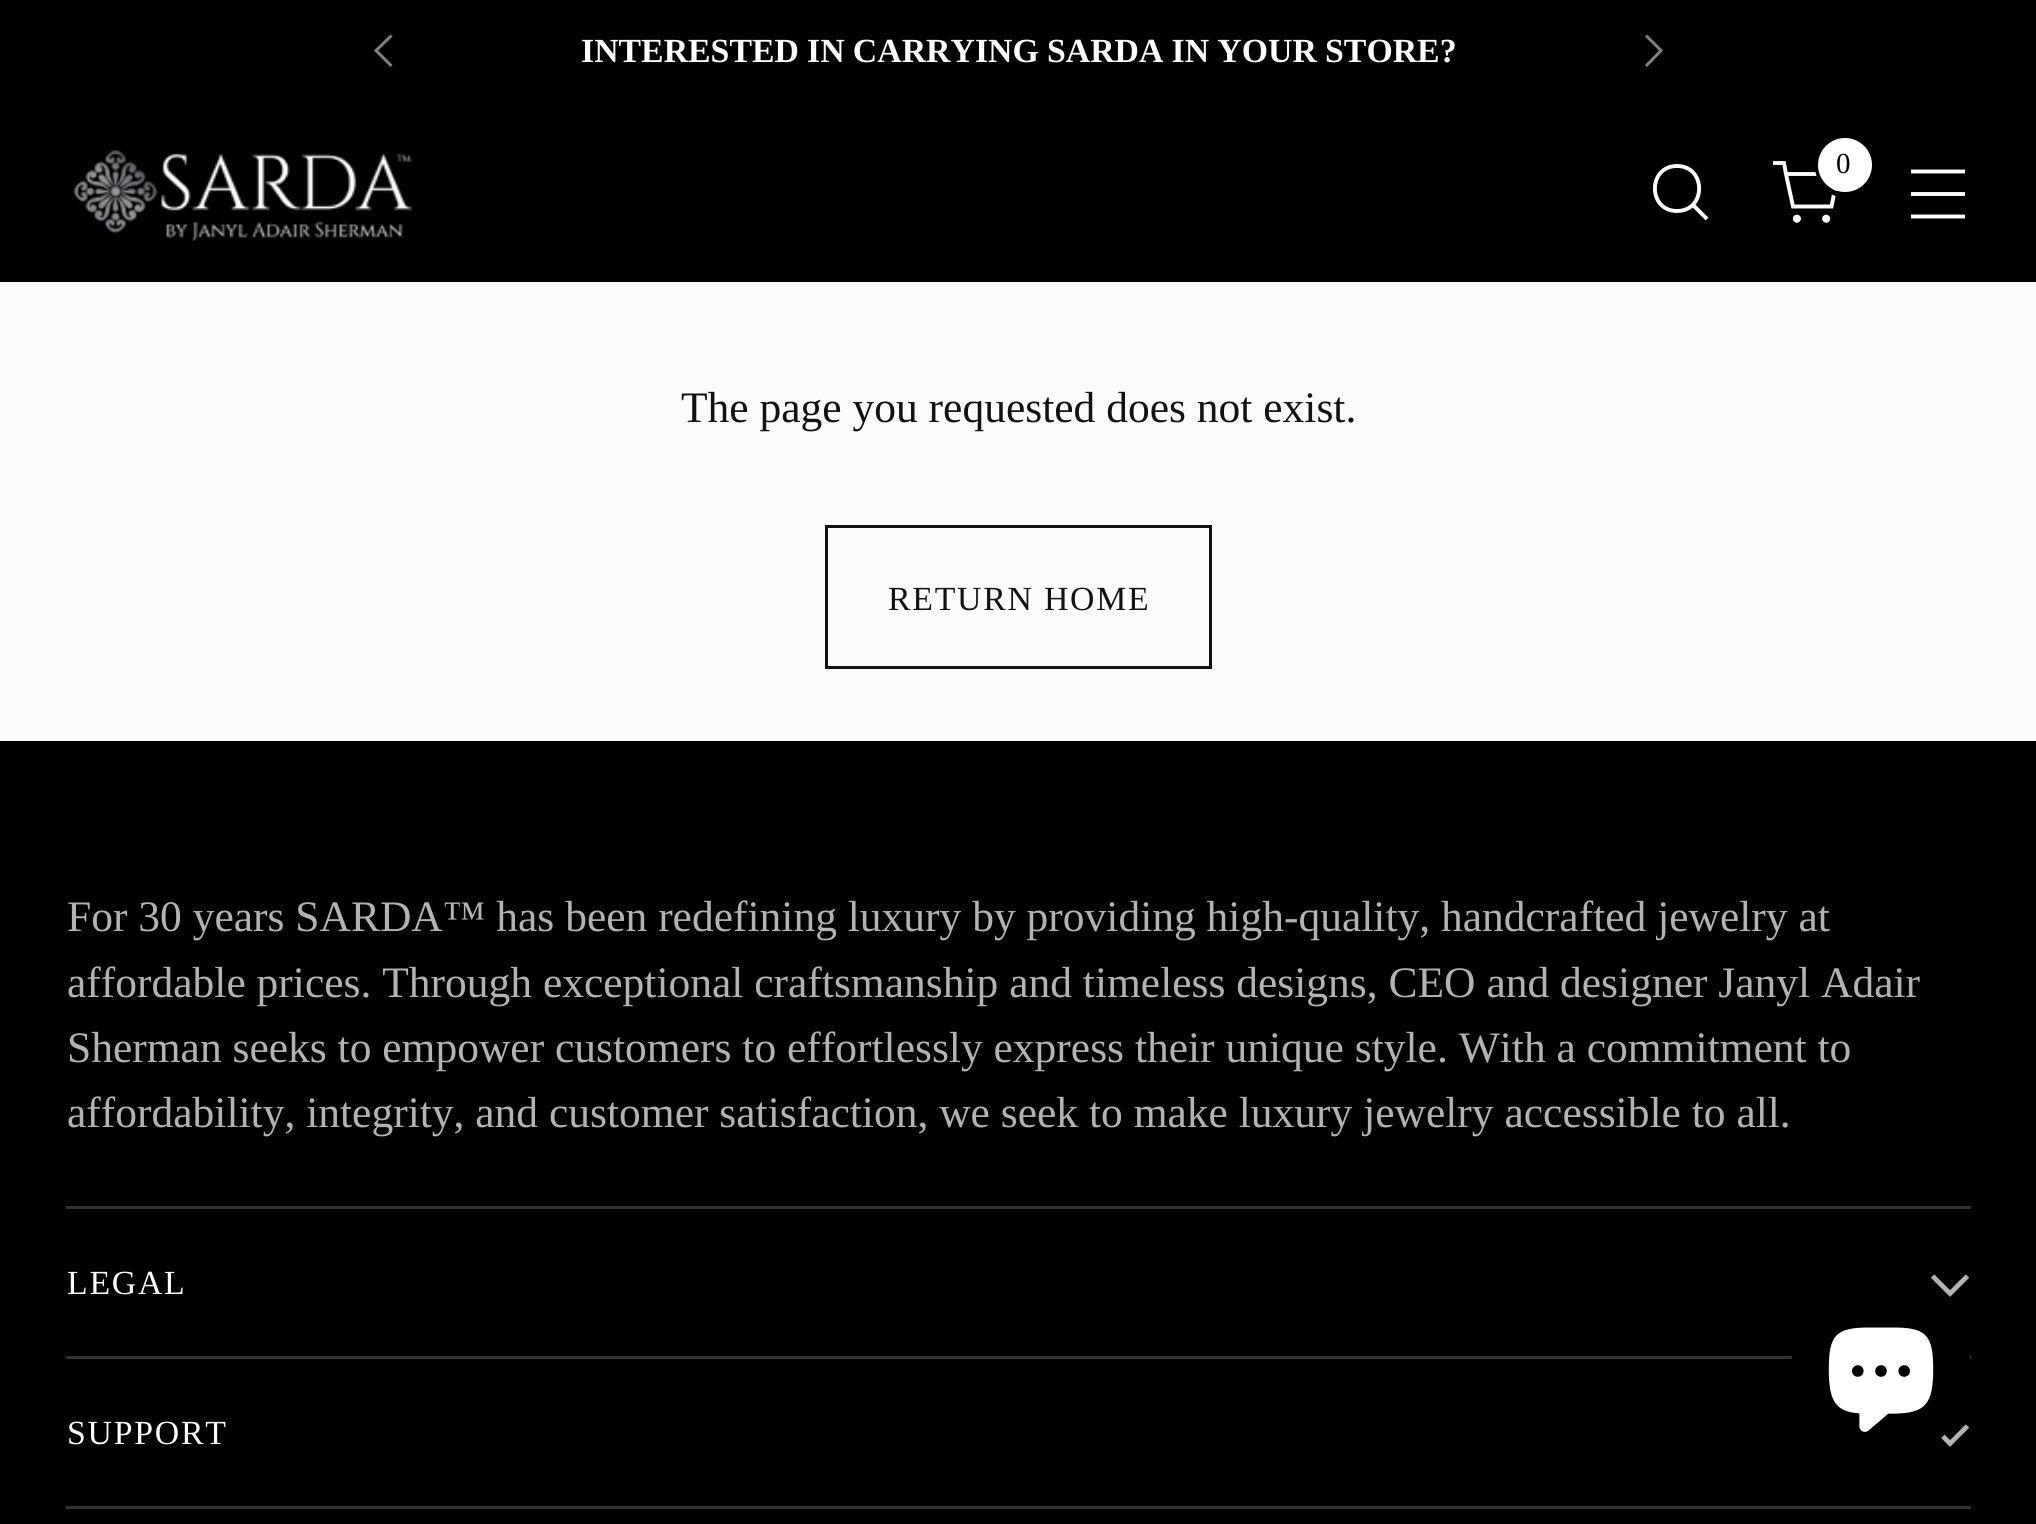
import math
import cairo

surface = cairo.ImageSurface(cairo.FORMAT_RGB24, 2036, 1524)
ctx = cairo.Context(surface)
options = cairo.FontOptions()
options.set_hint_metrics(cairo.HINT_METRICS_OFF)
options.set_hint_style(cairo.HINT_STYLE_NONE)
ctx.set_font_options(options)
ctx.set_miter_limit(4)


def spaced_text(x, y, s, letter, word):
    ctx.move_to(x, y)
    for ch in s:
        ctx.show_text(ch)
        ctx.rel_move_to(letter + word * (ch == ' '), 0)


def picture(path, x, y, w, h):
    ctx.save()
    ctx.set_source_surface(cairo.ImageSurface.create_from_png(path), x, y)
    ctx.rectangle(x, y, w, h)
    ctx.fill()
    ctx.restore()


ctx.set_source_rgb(0.988, 0.988, 0.984)
ctx.paint()
ctx.set_source_rgb(0, 0, 0)
ctx.rectangle(0, 0, 2036, 282)
ctx.fill()
ctx.new_path()
ctx.move_to(391.5, 35.5)
ctx.line_to(376, 50.5)
ctx.line_to(391.5, 66)
ctx.set_source_rgb(0.502, 0.502, 0.502)
ctx.set_line_width(3)
ctx.stroke()
ctx.new_path()
ctx.move_to(1646, 66)
ctx.line_to(1661, 50.5)
ctx.line_to(1646, 35.5)
ctx.stroke()
ctx.select_font_face("Liberation Serif", cairo.FONT_SLANT_NORMAL, cairo.FONT_WEIGHT_BOLD)
ctx.set_font_size(33.8)
ctx.set_source_rgb(1, 1, 1)
spaced_text(581, 62, "INTERESTED IN CARRYING SARDA IN YOUR STORE?", 0, -0.25)
picture("img1.png", 73, 150, 340, 91)
ctx.new_path()
ctx.move_to(1677, 211)
ctx.curve_to(1706.5, 211, 1706.5, 166, 1677, 166)
ctx.curve_to(1647.5, 166, 1647.5, 211, 1677, 211)
ctx.close_path()
ctx.set_line_width(3.9)
ctx.set_line_cap(cairo.LINE_CAP_ROUND)
ctx.stroke()
ctx.new_path()
ctx.move_to(1693, 205)
ctx.line_to(1707, 219)
ctx.set_line_cap(cairo.LINE_CAP_BUTT)
ctx.stroke()
ctx.new_path()
ctx.move_to(1786, 174)
ctx.line_to(1838, 174)
ctx.line_to(1831.5, 206.5)
ctx.line_to(1793, 206.5)
ctx.close_path()
ctx.move_to(1786, 174)
ctx.line_to(1784, 163)
ctx.line_to(1773, 163)
ctx.stroke()
ctx.new_path()
ctx.move_to(1795.5, 217)
ctx.curve_to(1798, 215.5, 1800.5, 218.5, 1798, 220.5)
ctx.curve_to(1796, 222, 1793.5, 218.5, 1795.5, 217)
ctx.close_path()
ctx.move_to(1825, 217)
ctx.curve_to(1827, 215.5, 1829.5, 218.5, 1827.5, 220.5)
ctx.curve_to(1825.5, 222, 1822.5, 218.5, 1825, 217)
ctx.close_path()
ctx.set_line_cap(cairo.LINE_CAP_ROUND)
ctx.set_line_join(cairo.LINE_JOIN_BEVEL)
ctx.stroke()
ctx.arc(1846.5, 166.5, 29, 0, 2 * math.pi)
ctx.set_source_rgb(0, 0, 0)
ctx.set_line_width(5)
ctx.set_line_cap(cairo.LINE_CAP_BUTT)
ctx.set_line_join(cairo.LINE_JOIN_MITER)
ctx.stroke()
ctx.set_source_rgb(1, 1, 1)
ctx.arc(1845, 165, 27, 0, 2 * math.pi)
ctx.fill()
ctx.select_font_face("Liberation Serif")
ctx.set_font_size(29)
ctx.set_source_rgb(0, 0, 0)
ctx.move_to(1836, 173)
ctx.show_text("0")
ctx.new_path()
ctx.move_to(1911, 194)
ctx.line_to(1965, 194)
ctx.move_to(1911, 171.5)
ctx.line_to(1965, 171.5)
ctx.move_to(1911, 216.5)
ctx.line_to(1965, 216.5)
ctx.set_source_rgb(1, 1, 1)
ctx.set_line_width(3.9)
ctx.stroke()
ctx.set_font_size(43.5)
ctx.set_source_rgb(0.067, 0.067, 0.067)
ctx.move_to(681, 422)
ctx.show_text("The page you requested does not exist.")
ctx.rectangle(826.5, 526.5, 384, 141)
ctx.set_line_width(3)
ctx.stroke()
ctx.set_font_size(33.8)
spaced_text(888, 610, "RETURN HOME", 1.75, 0)
ctx.set_source_rgb(0, 0, 0)
ctx.rectangle(0, 741, 2036, 783)
ctx.fill()
ctx.set_source_rgb(0.2, 0.2, 0.2)
ctx.rectangle(66, 1206, 1905, 3)
ctx.fill()
ctx.set_font_size(43.5)
ctx.set_source_rgb(0.702, 0.702, 0.702)
ctx.move_to(67, 931)
ctx.show_text("For 30 years SARDA™ has been redefining luxury by providing high-quality, handcrafted jewelry at")
ctx.move_to(67, 997)
ctx.show_text("affordable prices. Through exceptional craftsmanship and timeless designs, CEO and designer Janyl Adair")
ctx.move_to(67, 1062)
ctx.show_text("Sherman seeks to empower customers to effortlessly express their unique style. With a commitment to")
ctx.move_to(67, 1127)
ctx.show_text("affordability, integrity, and customer satisfaction, we seek to make luxury jewelry accessible to all.")
ctx.set_source_rgb(0.2, 0.2, 0.2)
ctx.rectangle(66, 1356, 1905, 3)
ctx.fill()
ctx.set_font_size(33.8)
ctx.set_source_rgb(1, 1, 1)
spaced_text(67, 1294, "LEGAL", 1.75, 0)
ctx.new_path()
ctx.move_to(1932.5, 1276)
ctx.line_to(1950, 1293.5)
ctx.line_to(1967.5, 1276)
ctx.set_source_rgb(0.702, 0.702, 0.702)
ctx.set_line_width(4.8)
ctx.stroke()
ctx.set_source_rgb(0.2, 0.2, 0.2)
ctx.rectangle(66, 1506, 1905, 3)
ctx.fill()
ctx.set_source_rgb(1, 1, 1)
spaced_text(67, 1444, "SUPPORT", 1.75, 0)
ctx.new_path()
ctx.move_to(1932.5, 1426)
ctx.line_to(1950, 1443.5)
ctx.line_to(1967.5, 1426)
ctx.set_source_rgb(0.702, 0.702, 0.702)
ctx.stroke()
ctx.set_source_rgb(0, 0, 0)
ctx.arc(1881, 1371, 90, 0, 2 * math.pi)
ctx.fill()
picture("img2.png", 1828, 1327, 106, 105)
surface.write_to_png("page.png")
